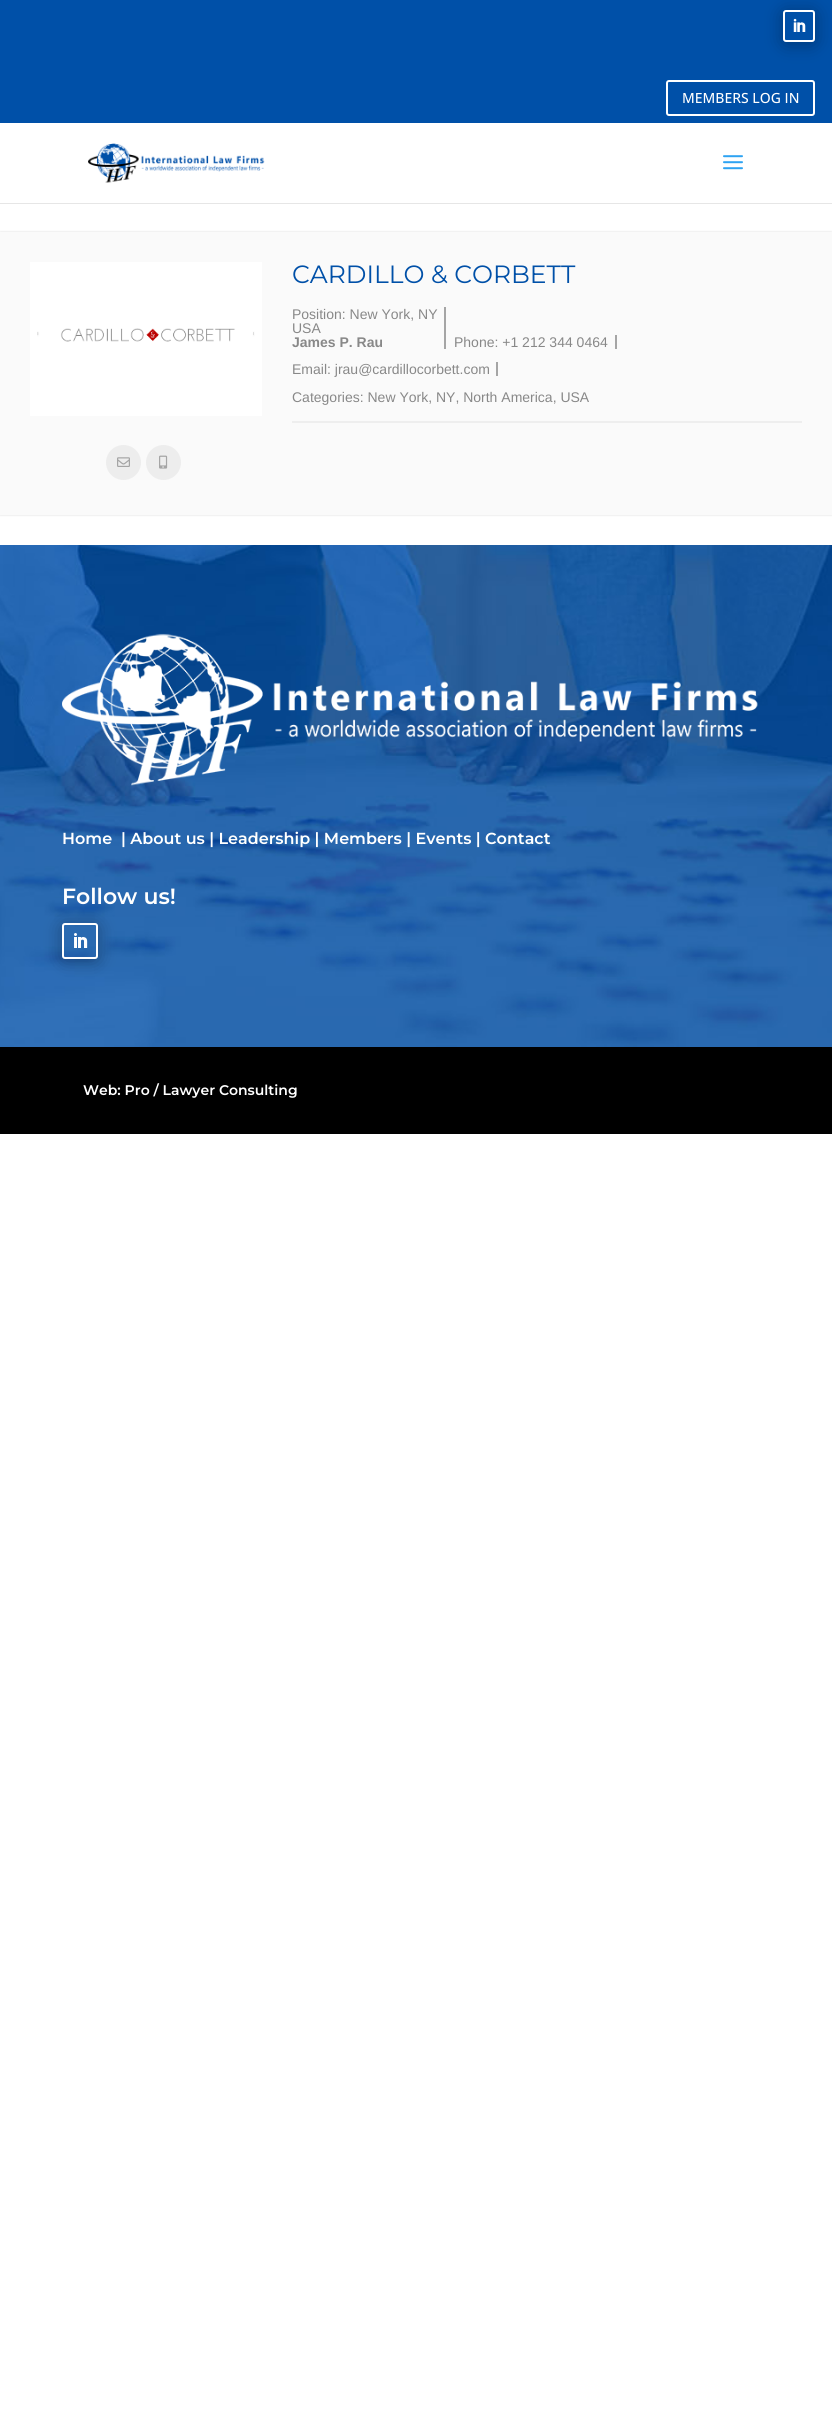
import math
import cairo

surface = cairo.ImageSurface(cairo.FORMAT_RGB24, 832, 2434)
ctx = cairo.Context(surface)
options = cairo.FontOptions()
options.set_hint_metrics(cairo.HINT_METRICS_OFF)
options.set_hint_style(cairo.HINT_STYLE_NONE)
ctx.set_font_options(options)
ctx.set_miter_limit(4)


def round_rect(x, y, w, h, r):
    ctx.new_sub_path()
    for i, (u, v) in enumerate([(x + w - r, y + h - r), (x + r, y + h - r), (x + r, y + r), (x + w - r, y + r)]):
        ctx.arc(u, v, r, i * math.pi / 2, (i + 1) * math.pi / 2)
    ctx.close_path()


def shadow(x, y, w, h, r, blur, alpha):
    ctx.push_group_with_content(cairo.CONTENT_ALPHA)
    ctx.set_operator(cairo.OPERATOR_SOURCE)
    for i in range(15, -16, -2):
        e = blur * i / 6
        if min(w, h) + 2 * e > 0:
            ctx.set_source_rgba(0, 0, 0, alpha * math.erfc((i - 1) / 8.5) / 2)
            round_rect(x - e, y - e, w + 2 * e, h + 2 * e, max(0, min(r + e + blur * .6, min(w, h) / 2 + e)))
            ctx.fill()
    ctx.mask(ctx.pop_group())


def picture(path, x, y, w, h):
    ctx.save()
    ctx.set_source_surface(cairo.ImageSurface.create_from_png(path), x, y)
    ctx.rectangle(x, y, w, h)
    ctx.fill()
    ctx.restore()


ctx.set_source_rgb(1, 1, 1)
ctx.paint()
ctx.set_source_rgb(0, 0.314, 0.659)
ctx.rectangle(0, 0, 832, 123)
ctx.fill()
ctx.save()
ctx.set_fill_rule(cairo.FILL_RULE_EVEN_ODD)
ctx.new_path()
ctx.move_to(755, 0)
ctx.line_to(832, 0)
ctx.line_to(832, 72)
ctx.line_to(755, 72)
ctx.close_path()
ctx.move_to(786, 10)
ctx.line_to(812, 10)
ctx.curve_to(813.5, 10, 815, 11.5, 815, 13)
ctx.line_to(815, 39)
ctx.curve_to(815, 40.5, 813.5, 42, 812, 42)
ctx.line_to(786, 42)
ctx.curve_to(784.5, 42, 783, 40.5, 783, 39)
ctx.line_to(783, 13)
ctx.curve_to(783, 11.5, 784.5, 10, 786, 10)
ctx.close_path()
ctx.clip()
ctx.set_source_rgb(0, 0, 0)
shadow(783, 12, 32, 32, 3, 9, 0.3)
ctx.restore()
round_rect(784, 11, 30, 30, 2)
ctx.set_source_rgb(1, 1, 1)
ctx.stroke()
picture("img1.png", 793, 18, 13, 14)
round_rect(667, 81, 147, 34, 2)
ctx.stroke()
ctx.select_font_face("Open Sans Medium")
ctx.set_font_size(14)
ctx.move_to(682, 103)
ctx.show_text("MEMBERS LOG IN")
ctx.set_source_rgb(0.902, 0.902, 0.902)
ctx.rectangle(0, 203, 832, 1)
ctx.fill()
picture("img2.png", 88, 143, 177, 40)
picture("img3.png", 723, 155, 20, 15)
ctx.set_source_rgb(0, 0, 0)
shadow(0, 232, 832, 283, 0, 1, 0.15)
ctx.set_source_rgb(0.98, 0.98, 0.98)
ctx.rectangle(0, 232, 832, 283)
ctx.fill()
picture("img4.png", 30, 262, 232, 154)
ctx.set_source_rgb(0.929, 0.929, 0.929)
ctx.arc(123.5, 462.5, 17.5, 0, 2 * math.pi)
ctx.fill()
picture("img5.png", 117, 457, 13, 10)
ctx.arc(163.5, 462.5, 17.5, 0, 2 * math.pi)
ctx.fill()
picture("img6.png", 159, 455, 9, 14)
ctx.set_source_rgb(0.933, 0.933, 0.933)
ctx.rectangle(292, 421, 510, 2)
ctx.fill()
ctx.select_font_face("Montserrat Thin")
ctx.set_font_size(25)
ctx.set_source_rgb(0, 0.314, 0.659)
ctx.move_to(292, 283)
ctx.show_text("CARDILLO & CORBETT")
ctx.set_source_rgb(0.647, 0.647, 0.647)
ctx.rectangle(444, 307, 2, 42)
ctx.fill()
ctx.select_font_face("Liberation Sans")
ctx.set_font_size(14)
ctx.set_source_rgb(0.533, 0.533, 0.533)
ctx.move_to(292, 319)
ctx.show_text("Position: New York, NY")
ctx.move_to(292, 333)
ctx.show_text("USA")
ctx.select_font_face("Liberation Sans", cairo.FONT_SLANT_NORMAL, cairo.FONT_WEIGHT_BOLD)
ctx.move_to(292, 347)
ctx.show_text("James P. Rau")
ctx.set_source_rgb(0.647, 0.647, 0.647)
ctx.rectangle(615, 335, 2, 14)
ctx.fill()
ctx.select_font_face("Liberation Sans")
ctx.set_source_rgb(0.533, 0.533, 0.533)
ctx.move_to(454, 347)
ctx.show_text("Phone: +1 212 344 0464")
ctx.set_source_rgb(0.647, 0.647, 0.647)
ctx.rectangle(496, 362, 2, 14)
ctx.fill()
ctx.set_source_rgb(0.533, 0.533, 0.533)
ctx.move_to(292, 374)
ctx.show_text("Email: jrau@cardillocorbett.com")
ctx.move_to(292, 402)
ctx.show_text("Categories: New York, NY, North America, USA")
picture("img7.png", 0, 545, 832, 502)
picture("img8.png", 62, 633, 696, 153)
ctx.select_font_face("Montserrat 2 Thin")
ctx.set_font_size(16)
ctx.set_source_rgb(1, 1, 1)
ctx.move_to(62, 844)
ctx.show_text("Home")
ctx.move_to(121, 844)
ctx.show_text("| About us | Leadership | Members | Events | Contact")
ctx.set_font_size(22)
ctx.move_to(62, 904)
ctx.show_text("Follow us!")
ctx.save()
ctx.set_fill_rule(cairo.FILL_RULE_EVEN_ODD)
ctx.new_path()
ctx.move_to(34, 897)
ctx.line_to(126, 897)
ctx.line_to(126, 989)
ctx.line_to(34, 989)
ctx.close_path()
ctx.move_to(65, 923)
ctx.line_to(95, 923)
ctx.curve_to(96.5, 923, 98, 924.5, 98, 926)
ctx.line_to(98, 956)
ctx.curve_to(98, 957.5, 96.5, 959, 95, 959)
ctx.line_to(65, 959)
ctx.curve_to(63.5, 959, 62, 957.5, 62, 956)
ctx.line_to(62, 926)
ctx.curve_to(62, 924.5, 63.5, 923, 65, 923)
ctx.close_path()
ctx.clip()
ctx.set_source_rgb(0, 0, 0)
shadow(62, 925, 36, 36, 3, 9, 0.3)
ctx.restore()
round_rect(63, 924, 34, 34, 2)
ctx.stroke()
picture("img9.png", 74, 933, 14, 15)
ctx.set_source_rgb(0, 0, 0)
ctx.rectangle(0, 1047, 832, 87)
ctx.fill()
ctx.set_font_size(14)
ctx.set_source_rgb(1, 1, 1)
ctx.move_to(83, 1095)
ctx.show_text("Web: Pro / Lawyer Consulting")
surface.write_to_png("page.png")
